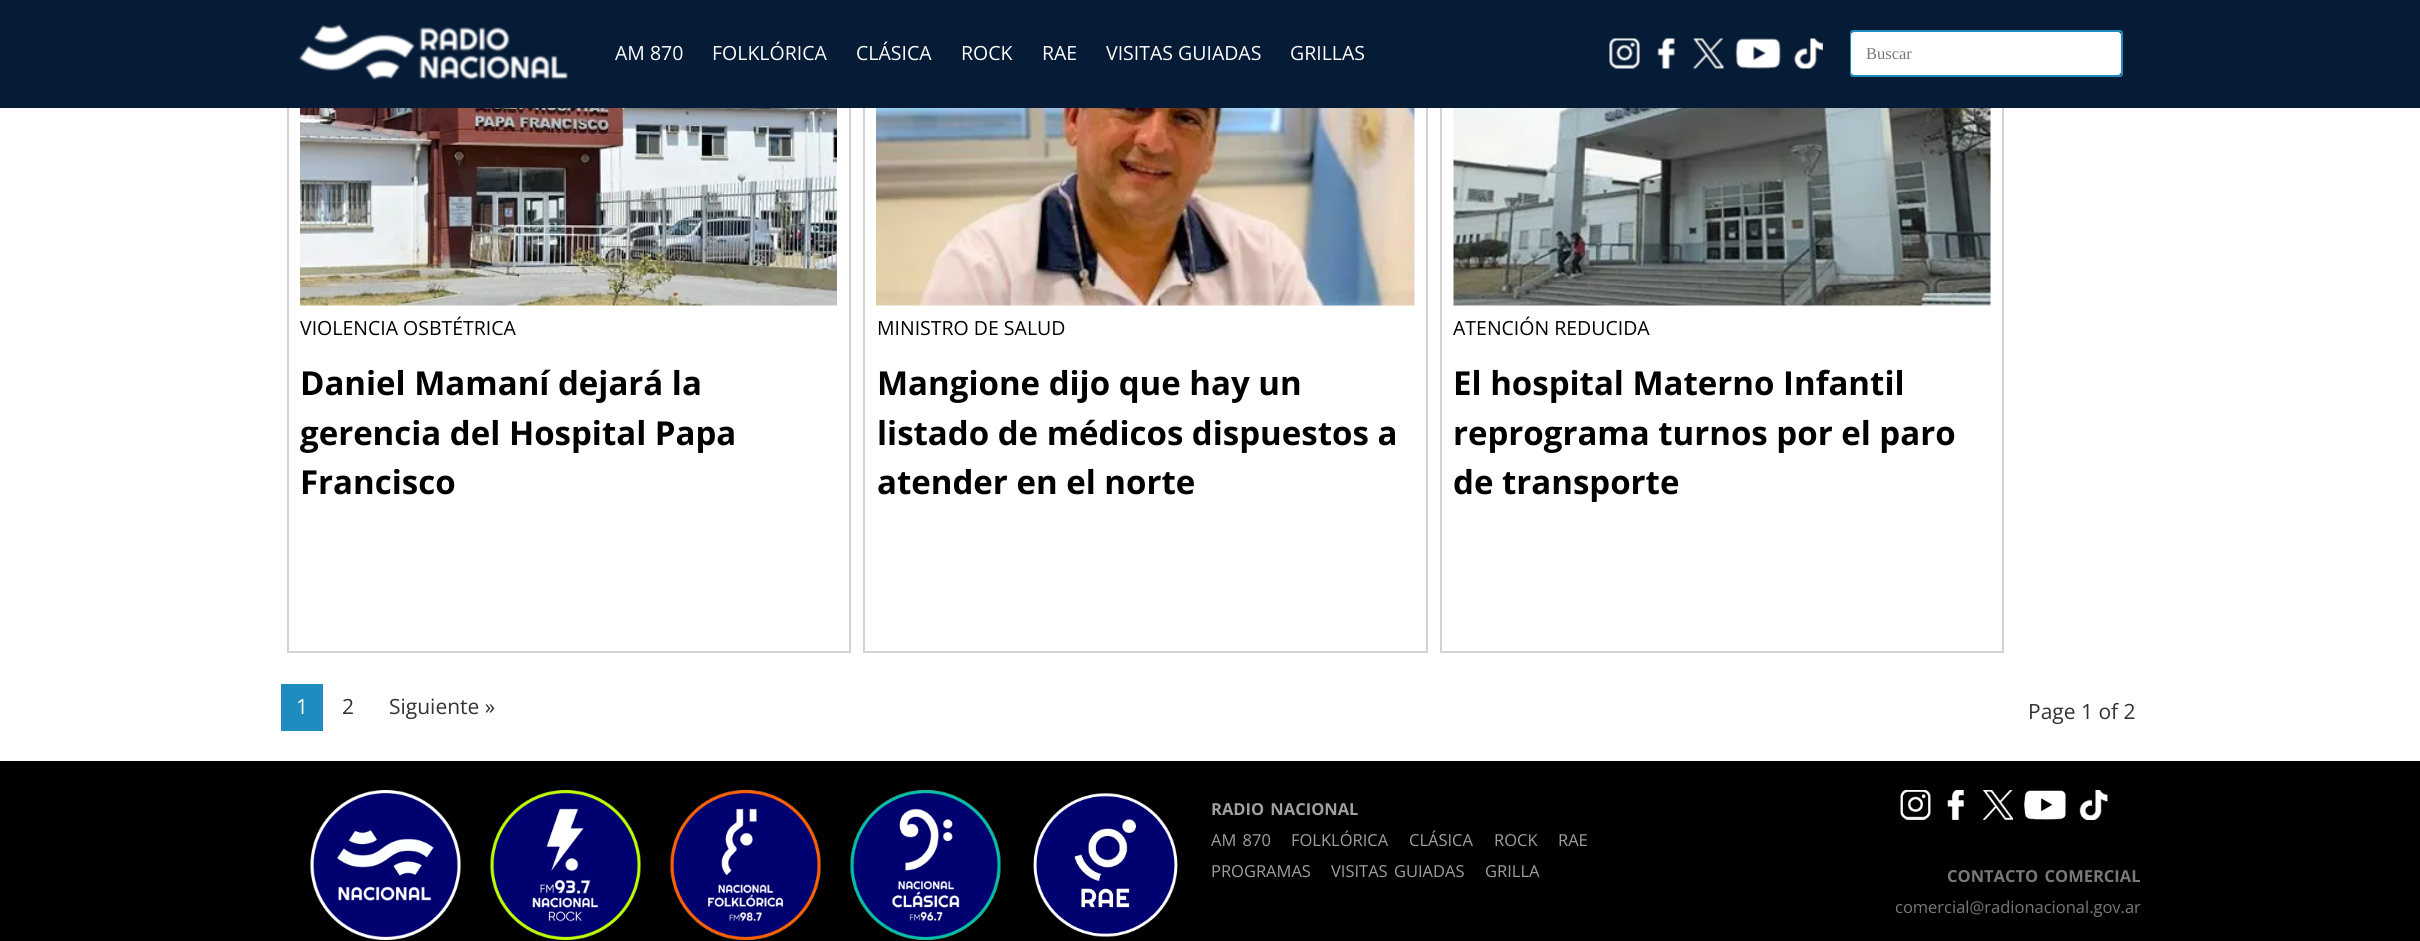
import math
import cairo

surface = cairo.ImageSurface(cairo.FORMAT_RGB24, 2420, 941)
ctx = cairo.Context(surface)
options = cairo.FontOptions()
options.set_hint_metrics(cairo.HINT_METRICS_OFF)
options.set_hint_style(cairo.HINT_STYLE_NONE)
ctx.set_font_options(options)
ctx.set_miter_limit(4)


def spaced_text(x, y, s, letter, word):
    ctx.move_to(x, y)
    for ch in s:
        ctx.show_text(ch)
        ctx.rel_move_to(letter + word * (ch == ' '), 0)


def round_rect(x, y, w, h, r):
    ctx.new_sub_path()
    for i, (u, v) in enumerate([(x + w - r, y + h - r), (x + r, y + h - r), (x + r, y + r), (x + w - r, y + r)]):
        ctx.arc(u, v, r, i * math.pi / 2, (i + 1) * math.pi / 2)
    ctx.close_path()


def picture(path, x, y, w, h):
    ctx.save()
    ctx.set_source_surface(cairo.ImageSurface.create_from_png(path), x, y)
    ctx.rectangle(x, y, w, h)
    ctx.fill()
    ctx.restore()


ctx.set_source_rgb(1, 1, 1)
ctx.paint()
ctx.rectangle(288, -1, 562, 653)
ctx.set_source_rgb(0.827, 0.827, 0.827)
ctx.stroke()
ctx.rectangle(864, -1, 563, 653)
ctx.stroke()
ctx.rectangle(1441, -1, 562, 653)
ctx.stroke()
ctx.set_source_rgb(0.027, 0.106, 0.212)
ctx.rectangle(0, 0, 2420, 108)
ctx.fill()
picture("img1.png", 299, 24, 269, 56)
ctx.select_font_face("Open Sans")
ctx.set_font_size(19.5)
ctx.set_source_rgb(1, 1, 1)
ctx.move_to(615, 60)
ctx.show_text("AM 870")
ctx.move_to(712, 60)
ctx.show_text("FOLKLÓRICA")
ctx.move_to(856, 60)
ctx.show_text("CLÁSICA")
ctx.move_to(961, 60)
ctx.show_text("ROCK")
ctx.move_to(1042, 60)
ctx.show_text("RAE")
ctx.move_to(1106, 60)
ctx.show_text("VISITAS GUIADAS")
ctx.move_to(1290, 60)
ctx.show_text("GRILLAS")
picture("img2.png", 1609, 38, 31, 31)
picture("img3.png", 1657, 38, 18, 31)
picture("img4.png", 1693, 38, 31, 31)
picture("img5.png", 1735, 38, 46, 31)
picture("img6.png", 1794, 38, 29, 31)
round_rect(1851, 31, 271, 45, 2)
ctx.set_source_rgb(0.118, 0.549, 0.745)
ctx.stroke()
ctx.set_source_rgb(1, 1, 1)
round_rect(1851, 32, 270, 43, 3)
ctx.fill()
ctx.select_font_face("Liberation Serif")
ctx.set_font_size(16.5)
ctx.set_source_rgb(0.471, 0.471, 0.471)
ctx.move_to(1866, 59)
ctx.show_text("Buscar")
picture("img7.png", 300, 108, 537, 198)
ctx.select_font_face("Open Sans")
ctx.set_font_size(19.5)
ctx.set_source_rgb(0, 0, 0)
ctx.move_to(300, 335)
ctx.show_text("VIOLENCIA OSBTÉTRICA")
ctx.select_font_face("Open Sans", cairo.FONT_SLANT_NORMAL, cairo.FONT_WEIGHT_BOLD)
ctx.set_font_size(33)
ctx.move_to(300, 395)
ctx.show_text("Daniel Mamaní dejará la")
ctx.move_to(300, 445)
ctx.show_text("gerencia del Hospital Papa")
ctx.move_to(300, 494)
ctx.show_text("Francisco")
picture("img8.png", 876, 108, 539, 198)
ctx.select_font_face("Open Sans")
ctx.set_font_size(19.5)
ctx.move_to(877, 335)
ctx.show_text("MINISTRO DE SALUD")
ctx.select_font_face("Open Sans", cairo.FONT_SLANT_NORMAL, cairo.FONT_WEIGHT_BOLD)
ctx.set_font_size(33)
ctx.move_to(877, 395)
ctx.show_text("Mangione dijo que hay un")
ctx.move_to(877, 445)
ctx.show_text("listado de médicos dispuestos a")
ctx.move_to(877, 494)
ctx.show_text("atender en el norte")
picture("img9.png", 1453, 108, 538, 198)
ctx.select_font_face("Open Sans")
ctx.set_font_size(19.5)
ctx.move_to(1453, 335)
ctx.show_text("ATENCIÓN REDUCIDA")
ctx.select_font_face("Open Sans", cairo.FONT_SLANT_NORMAL, cairo.FONT_WEIGHT_BOLD)
ctx.set_font_size(33)
ctx.move_to(1453, 395)
ctx.show_text("El hospital Materno Infantil")
ctx.move_to(1453, 445)
ctx.show_text("reprograma turnos por el paro")
ctx.move_to(1453, 494)
ctx.show_text("de transporte")
ctx.set_source_rgb(0.118, 0.549, 0.745)
ctx.rectangle(281, 684, 42, 47)
ctx.fill()
ctx.select_font_face("Open Sans")
ctx.set_font_size(21)
ctx.set_source_rgb(1, 1, 1)
ctx.move_to(296, 714)
ctx.show_text("1")
ctx.set_source_rgb(0.2, 0.2, 0.2)
ctx.move_to(342, 714)
ctx.show_text("2")
ctx.move_to(389, 714)
ctx.show_text("Siguiente »")
ctx.move_to(2028, 719)
ctx.show_text("Page 1 of 2")
ctx.set_source_rgb(0, 0, 0)
ctx.rectangle(0, 761, 2420, 180)
ctx.fill()
picture("img10.png", 310, 790, 151, 150)
picture("img11.png", 490, 790, 151, 150)
picture("img12.png", 670, 790, 151, 150)
picture("img13.png", 850, 790, 151, 150)
picture("img14.png", 1033, 793, 145, 144)
ctx.select_font_face("Open Sans", cairo.FONT_SLANT_NORMAL, cairo.FONT_WEIGHT_BOLD)
ctx.set_font_size(16.5)
ctx.set_source_rgb(0.627, 0.624, 0.627)
spaced_text(1211, 815, "RADIO NACIONAL", 0, 2)
ctx.select_font_face("Open Sans")
spaced_text(1211, 846, "AM 870", 0, 2)
ctx.move_to(1291, 846)
ctx.show_text("FOLKLÓRICA")
ctx.move_to(1409, 846)
ctx.show_text("CLÁSICA")
ctx.move_to(1494, 846)
ctx.show_text("ROCK")
ctx.move_to(1558, 846)
ctx.show_text("RAE")
ctx.move_to(1211, 877)
ctx.show_text("PROGRAMAS")
spaced_text(1331, 877, "VISITAS GUIADAS", 0, 2)
ctx.move_to(1485, 877)
ctx.show_text("GRILLA")
picture("img15.png", 1900, 790, 31, 30)
picture("img16.png", 1947, 790, 17, 30)
picture("img17.png", 1983, 790, 30, 30)
picture("img18.png", 2024, 790, 42, 30)
picture("img19.png", 2079, 790, 29, 30)
ctx.select_font_face("Open Sans", cairo.FONT_SLANT_NORMAL, cairo.FONT_WEIGHT_BOLD)
ctx.set_source_rgb(0.471, 0.471, 0.471)
spaced_text(1947, 882, "CONTACTO COMERCIAL", 0, 2)
ctx.select_font_face("Open Sans")
ctx.move_to(1895, 913)
ctx.show_text("comercial@radionacional.gov.ar")
surface.write_to_png("page.png")
